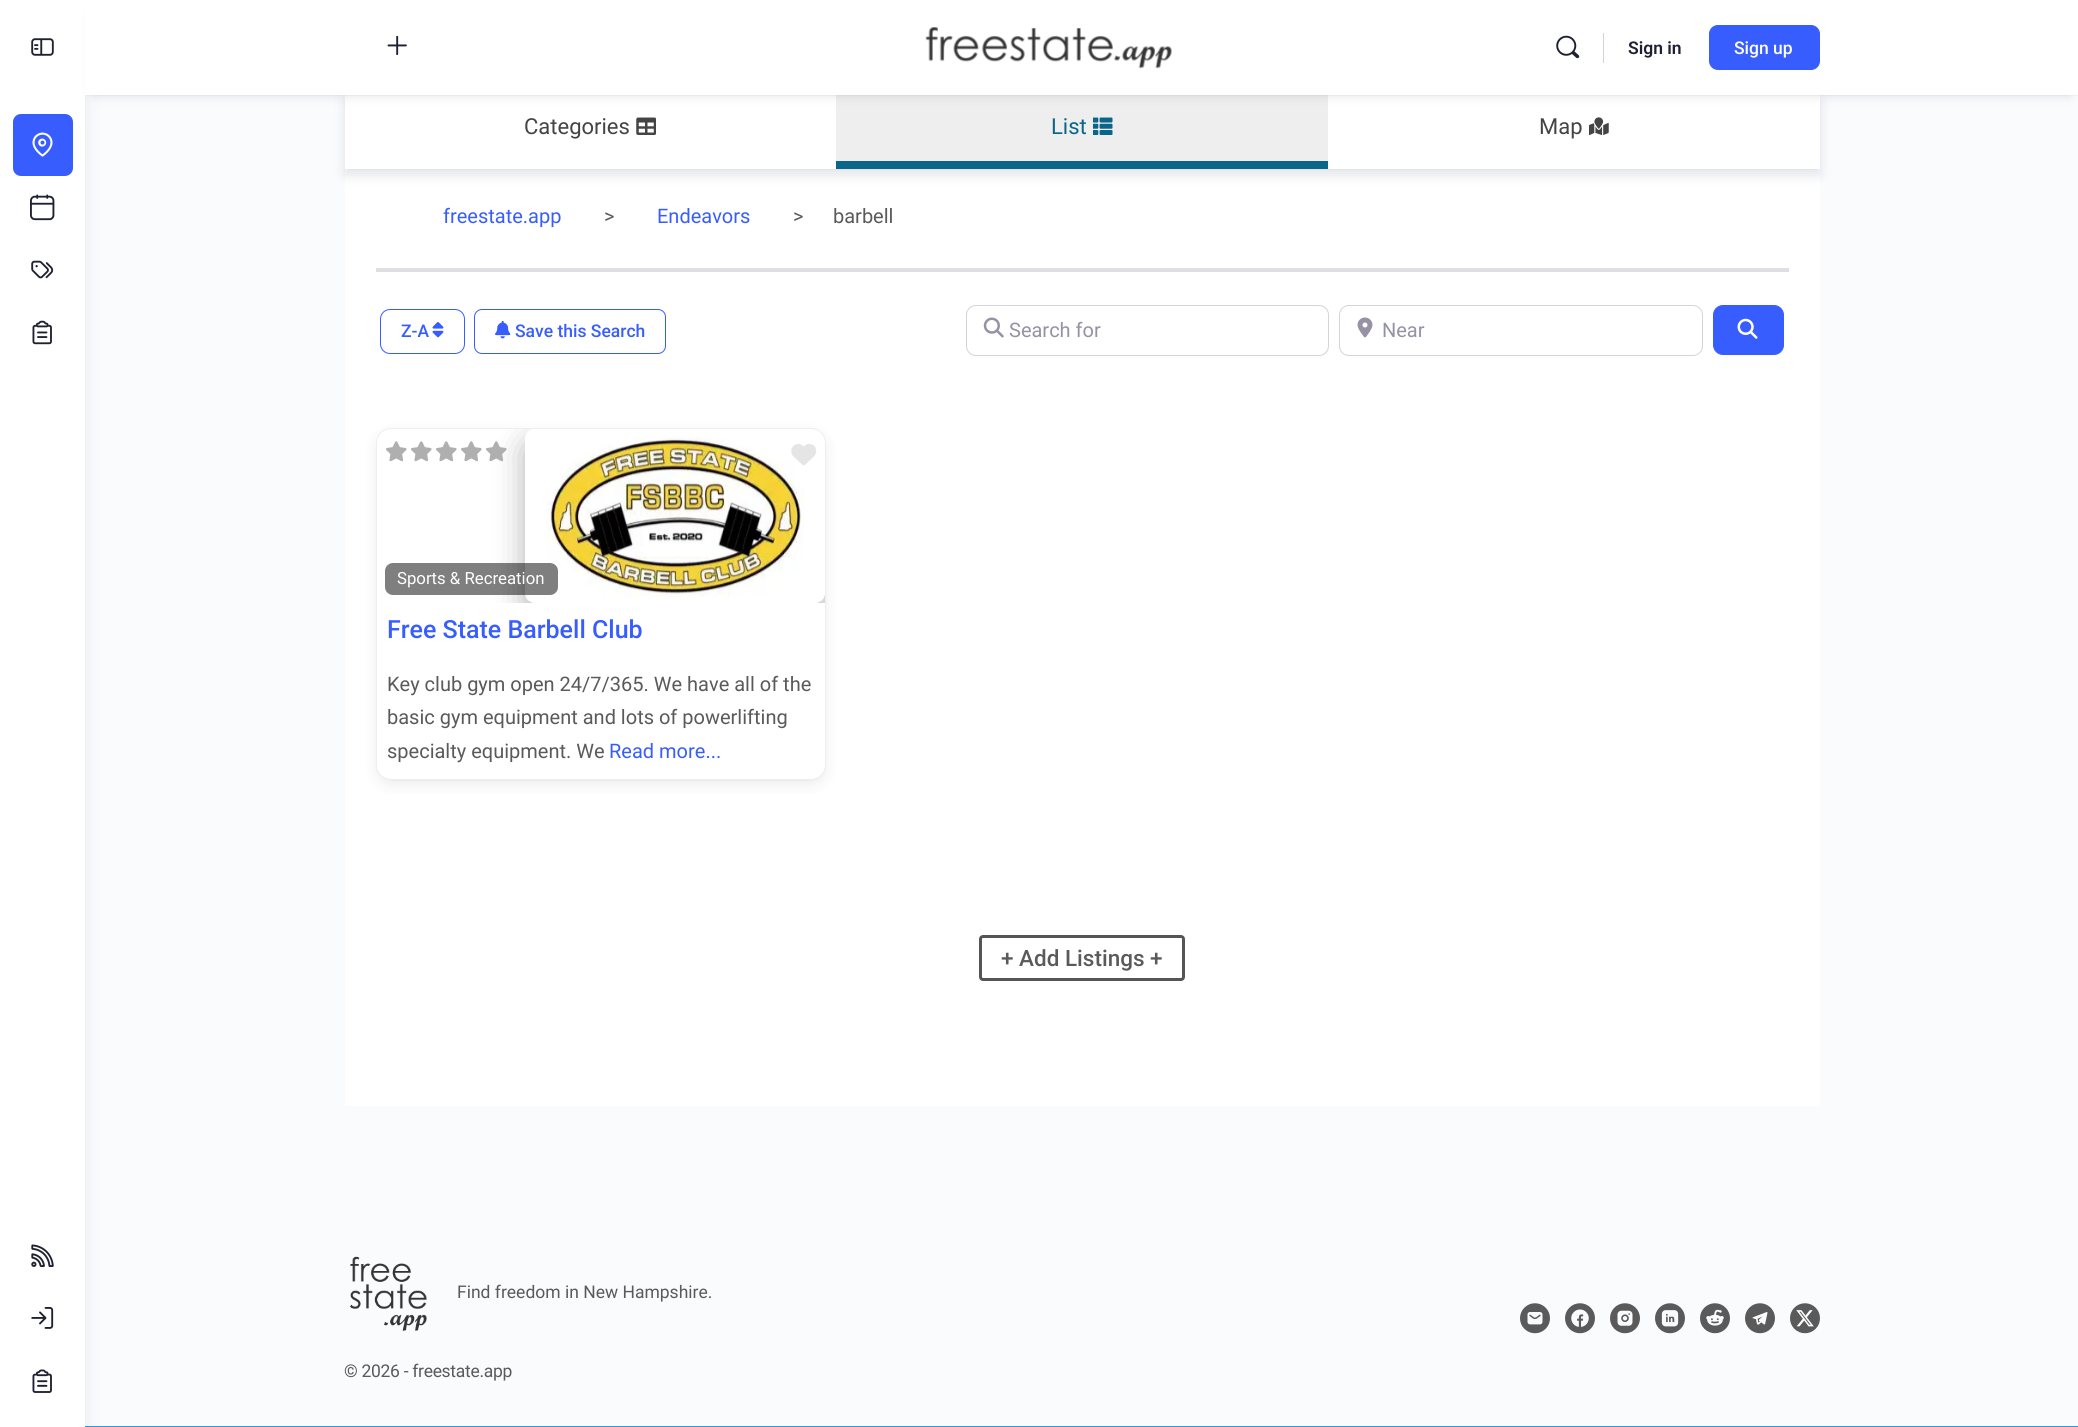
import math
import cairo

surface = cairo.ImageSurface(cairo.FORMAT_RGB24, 2078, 1427)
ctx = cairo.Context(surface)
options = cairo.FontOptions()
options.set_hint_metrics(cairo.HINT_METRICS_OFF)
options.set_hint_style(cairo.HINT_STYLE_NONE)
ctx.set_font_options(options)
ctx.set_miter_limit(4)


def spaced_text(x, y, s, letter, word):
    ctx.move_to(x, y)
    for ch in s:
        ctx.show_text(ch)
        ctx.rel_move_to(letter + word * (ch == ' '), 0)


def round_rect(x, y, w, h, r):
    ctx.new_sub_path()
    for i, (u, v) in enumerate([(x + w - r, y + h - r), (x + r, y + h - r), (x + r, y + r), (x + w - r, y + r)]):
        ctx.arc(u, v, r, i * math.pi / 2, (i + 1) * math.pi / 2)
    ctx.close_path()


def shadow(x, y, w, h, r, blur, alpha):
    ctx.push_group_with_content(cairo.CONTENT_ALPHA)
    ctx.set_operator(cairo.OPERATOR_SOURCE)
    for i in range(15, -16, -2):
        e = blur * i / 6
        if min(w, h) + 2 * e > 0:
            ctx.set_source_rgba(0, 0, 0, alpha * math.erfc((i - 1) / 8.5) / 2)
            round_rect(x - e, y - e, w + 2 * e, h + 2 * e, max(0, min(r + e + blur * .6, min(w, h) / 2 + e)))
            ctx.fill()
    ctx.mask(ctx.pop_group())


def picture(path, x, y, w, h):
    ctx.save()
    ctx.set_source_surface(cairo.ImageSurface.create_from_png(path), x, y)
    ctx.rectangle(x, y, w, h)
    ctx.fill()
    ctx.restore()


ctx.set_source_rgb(0.98, 0.984, 0.992)
ctx.paint()
ctx.set_source_rgb(0.204, 0.596, 0.859)
ctx.rectangle(85, 1426, 1993, 1)
ctx.fill()
ctx.set_source_rgb(0.071, 0.169, 0.275)
shadow(0, 4, 85, 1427, 0, 8, 0.1)
ctx.set_source_rgb(1, 1, 1)
ctx.rectangle(0, 0, 85, 1427)
ctx.fill()
picture("img1.png", 31, 38, 23, 18)
ctx.set_source_rgb(0.22, 0.365, 1)
round_rect(13, 114, 60, 62, 8)
ctx.fill()
picture("img2.png", 32, 132, 21, 25)
picture("img3.png", 30, 194, 25, 27)
picture("img4.png", 31, 260, 23, 19)
picture("img5.png", 32, 320, 20, 25)
picture("img6.png", 31, 1244, 23, 23)
picture("img7.png", 31, 1307, 23, 22)
picture("img8.png", 32, 1369, 20, 24)
ctx.set_source_rgb(1, 1, 1)
ctx.rectangle(345, 169, 1475, 937)
ctx.fill()
ctx.set_source_rgb(0.255, 0.278, 0.424)
shadow(345, 99, 1475, 76, 0, 6, 0.15)
ctx.set_source_rgb(1, 1, 1)
ctx.rectangle(345, 95, 1475, 74)
ctx.fill()
ctx.set_source_rgb(0.933, 0.933, 0.933)
ctx.rectangle(836, 95, 492, 66)
ctx.fill()
ctx.set_source_rgb(0.255, 0.278, 0.424)
shadow(94, 15, 1976, 78, 0, 6, 0.25)
ctx.set_source_rgba(0.545, 0.553, 0.616, 0.05)
ctx.new_path()
ctx.move_to(85, 95)
ctx.line_to(85, 96)
ctx.line_to(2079, 96)
ctx.line_to(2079, 1)
ctx.line_to(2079, 95)
ctx.close_path()
ctx.fill()
ctx.set_source_rgb(1, 1, 1)
ctx.rectangle(85, 0, 1993, 95)
ctx.fill()
picture("img9.png", 387, 35, 20, 21)
picture("img10.png", 925, 26, 247, 43)
picture("img11.png", 1556, 35, 24, 24)
ctx.set_source_rgb(0.824, 0.827, 0.839)
ctx.rectangle(1603, 33, 1, 30)
ctx.fill()
ctx.select_font_face("Roboto SemiBold")
ctx.set_font_size(17.5)
ctx.set_source_rgb(0.118, 0.129, 0.196)
ctx.move_to(1628, 54)
ctx.show_text("Sign in")
ctx.set_source_rgb(0.22, 0.365, 1)
round_rect(1709.5, 25.5, 110, 44, 8.5)
ctx.fill_preserve()
ctx.set_line_width(1)
ctx.stroke()
ctx.select_font_face("Roboto Medium")
ctx.set_source_rgb(1, 1, 1)
ctx.move_to(1734, 54)
ctx.show_text("Sign up")
ctx.set_source_rgba(0.545, 0.553, 0.616, 0.05)
ctx.rectangle(345, 169, 1475, 1)
ctx.fill()
ctx.select_font_face("Roboto")
ctx.set_font_size(22)
ctx.set_source_rgb(0.267, 0.267, 0.267)
ctx.move_to(524, 134)
ctx.show_text("Categories")
picture("img12.png", 636, 117, 20, 18)
ctx.set_source_rgb(0.039, 0.4, 0.537)
ctx.rectangle(836, 161, 492, 8)
ctx.fill()
ctx.move_to(1051, 134)
ctx.show_text("List")
picture("img13.png", 1093, 117, 20, 18)
ctx.set_source_rgb(0.267, 0.267, 0.267)
ctx.move_to(1539, 134)
ctx.show_text("Map")
picture("img14.png", 1589, 117, 20, 19)
ctx.set_font_size(20)
ctx.set_source_rgb(0.22, 0.365, 1)
ctx.move_to(443, 223)
ctx.show_text("freestate.app")
ctx.set_source_rgb(0.353, 0.353, 0.353)
ctx.move_to(604, 223)
ctx.show_text(">")
ctx.set_source_rgb(0.22, 0.365, 1)
ctx.move_to(657, 223)
ctx.show_text("Endeavors")
ctx.set_source_rgb(0.353, 0.353, 0.353)
ctx.move_to(793, 223)
ctx.show_text(">")
ctx.move_to(833, 223)
ctx.show_text("barbell")
ctx.set_source_rgb(0.871, 0.875, 0.886)
ctx.rectangle(376, 268, 1413, 4)
ctx.fill()
round_rect(380.5, 309.5, 84, 44, 9.5)
ctx.set_source_rgb(0.22, 0.365, 1)
ctx.stroke()
ctx.select_font_face("Roboto Medium")
ctx.set_font_size(17.5)
ctx.move_to(401, 337)
ctx.show_text("Z-A")
picture("img15.png", 432, 322, 12, 16)
round_rect(474.5, 309.5, 191, 44, 7.5)
ctx.stroke()
picture("img16.png", 495, 320, 16, 19)
ctx.move_to(515, 337)
ctx.show_text("Save this Search")
round_rect(966.5, 305.5, 362, 50, 9.5)
ctx.set_source_rgb(0.835, 0.824, 0.863)
ctx.stroke()
picture("img17.png", 983, 317, 21, 21)
ctx.select_font_face("Roboto")
ctx.set_font_size(20)
ctx.set_source_rgb(0.588, 0.569, 0.643)
ctx.move_to(1009, 337)
ctx.show_text("Search for")
round_rect(1339.5, 305.5, 363, 50, 9.5)
ctx.set_source_rgb(0.835, 0.824, 0.863)
ctx.stroke()
picture("img18.png", 1357, 317, 16, 21)
ctx.set_source_rgb(0.588, 0.569, 0.643)
ctx.move_to(1382, 337)
ctx.show_text("Near")
ctx.set_source_rgb(0.22, 0.365, 1)
round_rect(1713.5, 305.5, 70, 49, 9.5)
ctx.fill_preserve()
ctx.stroke()
picture("img19.png", 1737, 318, 21, 21)
ctx.set_source_rgb(0.122, 0.106, 0.176)
shadow(376, 433, 450, 352, 15, 7.5, 0.08)
shadow(379, 433, 445, 347, 13, 1, 0.08)
ctx.set_source_rgb(1, 1, 1)
round_rect(376.5, 428.5, 449, 351, 14.5)
ctx.fill_preserve()
ctx.set_source_rgb(0.937, 0.925, 0.953)
ctx.stroke()
ctx.save()
ctx.new_path()
ctx.move_to(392, 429)
ctx.line_to(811, 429)
ctx.curve_to(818.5, 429, 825, 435.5, 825, 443)
ctx.line_to(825, 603)
ctx.line_to(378, 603)
ctx.line_to(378, 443)
ctx.curve_to(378, 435.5, 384.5, 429, 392, 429)
ctx.close_path()
ctx.clip()
ctx.set_fill_rule(cairo.FILL_RULE_EVEN_ODD)
ctx.new_path()
ctx.move_to(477, 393)
ctx.line_to(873, 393)
ctx.line_to(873, 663)
ctx.line_to(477, 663)
ctx.close_path()
ctx.move_to(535, 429)
ctx.line_to(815, 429)
ctx.curve_to(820.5, 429, 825, 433.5, 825, 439)
ctx.line_to(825, 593)
ctx.curve_to(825, 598.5, 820.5, 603, 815, 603)
ctx.line_to(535, 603)
ctx.curve_to(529.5, 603, 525, 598.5, 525, 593)
ctx.line_to(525, 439)
ctx.curve_to(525, 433.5, 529.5, 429, 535, 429)
ctx.close_path()
ctx.clip()
ctx.set_source_rgb(0, 0, 0)
shadow(525, 441, 300, 174, 10, 15.5, 0.3)
ctx.restore()
picture("img20.png", 546, 437, 258, 160)
picture("img21.png", 386, 441, 21, 21)
picture("img21.png", 411, 441, 21, 21)
picture("img21.png", 436, 441, 21, 21)
picture("img21.png", 461, 441, 21, 21)
picture("img22.png", 486, 441, 21, 21)
picture("img23.png", 791, 444, 26, 22)
ctx.set_source_rgba(0, 0, 0, 0.5)
round_rect(385, 563, 173, 32, 8)
ctx.fill()
ctx.set_font_size(16.75)
ctx.set_source_rgb(1, 1, 1)
ctx.move_to(397, 584)
ctx.show_text("Sports & Recreation")
ctx.select_font_face("Roboto Medium")
ctx.set_font_size(25)
ctx.set_source_rgb(0.22, 0.365, 1)
ctx.move_to(387, 638)
ctx.show_text("Free State Barbell Club")
ctx.select_font_face("Roboto")
ctx.set_font_size(20)
ctx.set_source_rgb(0.353, 0.353, 0.353)
ctx.move_to(387, 691)
ctx.show_text("Key club gym open 24/7/365. We have all of the")
ctx.move_to(387, 724)
ctx.show_text("basic gym equipment and lots of powerlifting")
ctx.move_to(387, 758)
ctx.show_text("specialty equipment. We")
ctx.set_source_rgb(0.22, 0.365, 1)
ctx.move_to(609, 758)
ctx.show_text("Read more...")
round_rect(980.5, 936.5, 203, 43, 2.5)
ctx.set_source_rgb(0.333, 0.333, 0.333)
ctx.set_line_width(3)
ctx.stroke()
ctx.select_font_face("Roboto Medium")
ctx.set_font_size(22.5)
ctx.set_source_rgb(0.353, 0.353, 0.353)
ctx.move_to(1001, 966)
ctx.show_text("+ Add Listings +")
picture("img24.png", 350, 1256, 77, 75)
ctx.select_font_face("Roboto")
ctx.set_font_size(17.5)
ctx.move_to(457, 1298)
ctx.show_text("Find freedom in New Hampshire.")
spaced_text(344, 1377, "© 2026 - freestate.app", -0.3, 0)
picture("img25.png", 1520, 1303, 30, 31)
picture("img26.png", 1565, 1303, 30, 31)
picture("img27.png", 1610, 1303, 30, 31)
picture("img28.png", 1655, 1303, 30, 31)
picture("img29.png", 1700, 1303, 30, 31)
picture("img30.png", 1745, 1303, 30, 31)
picture("img31.png", 1790, 1303, 30, 31)
surface.write_to_png("page.png")
